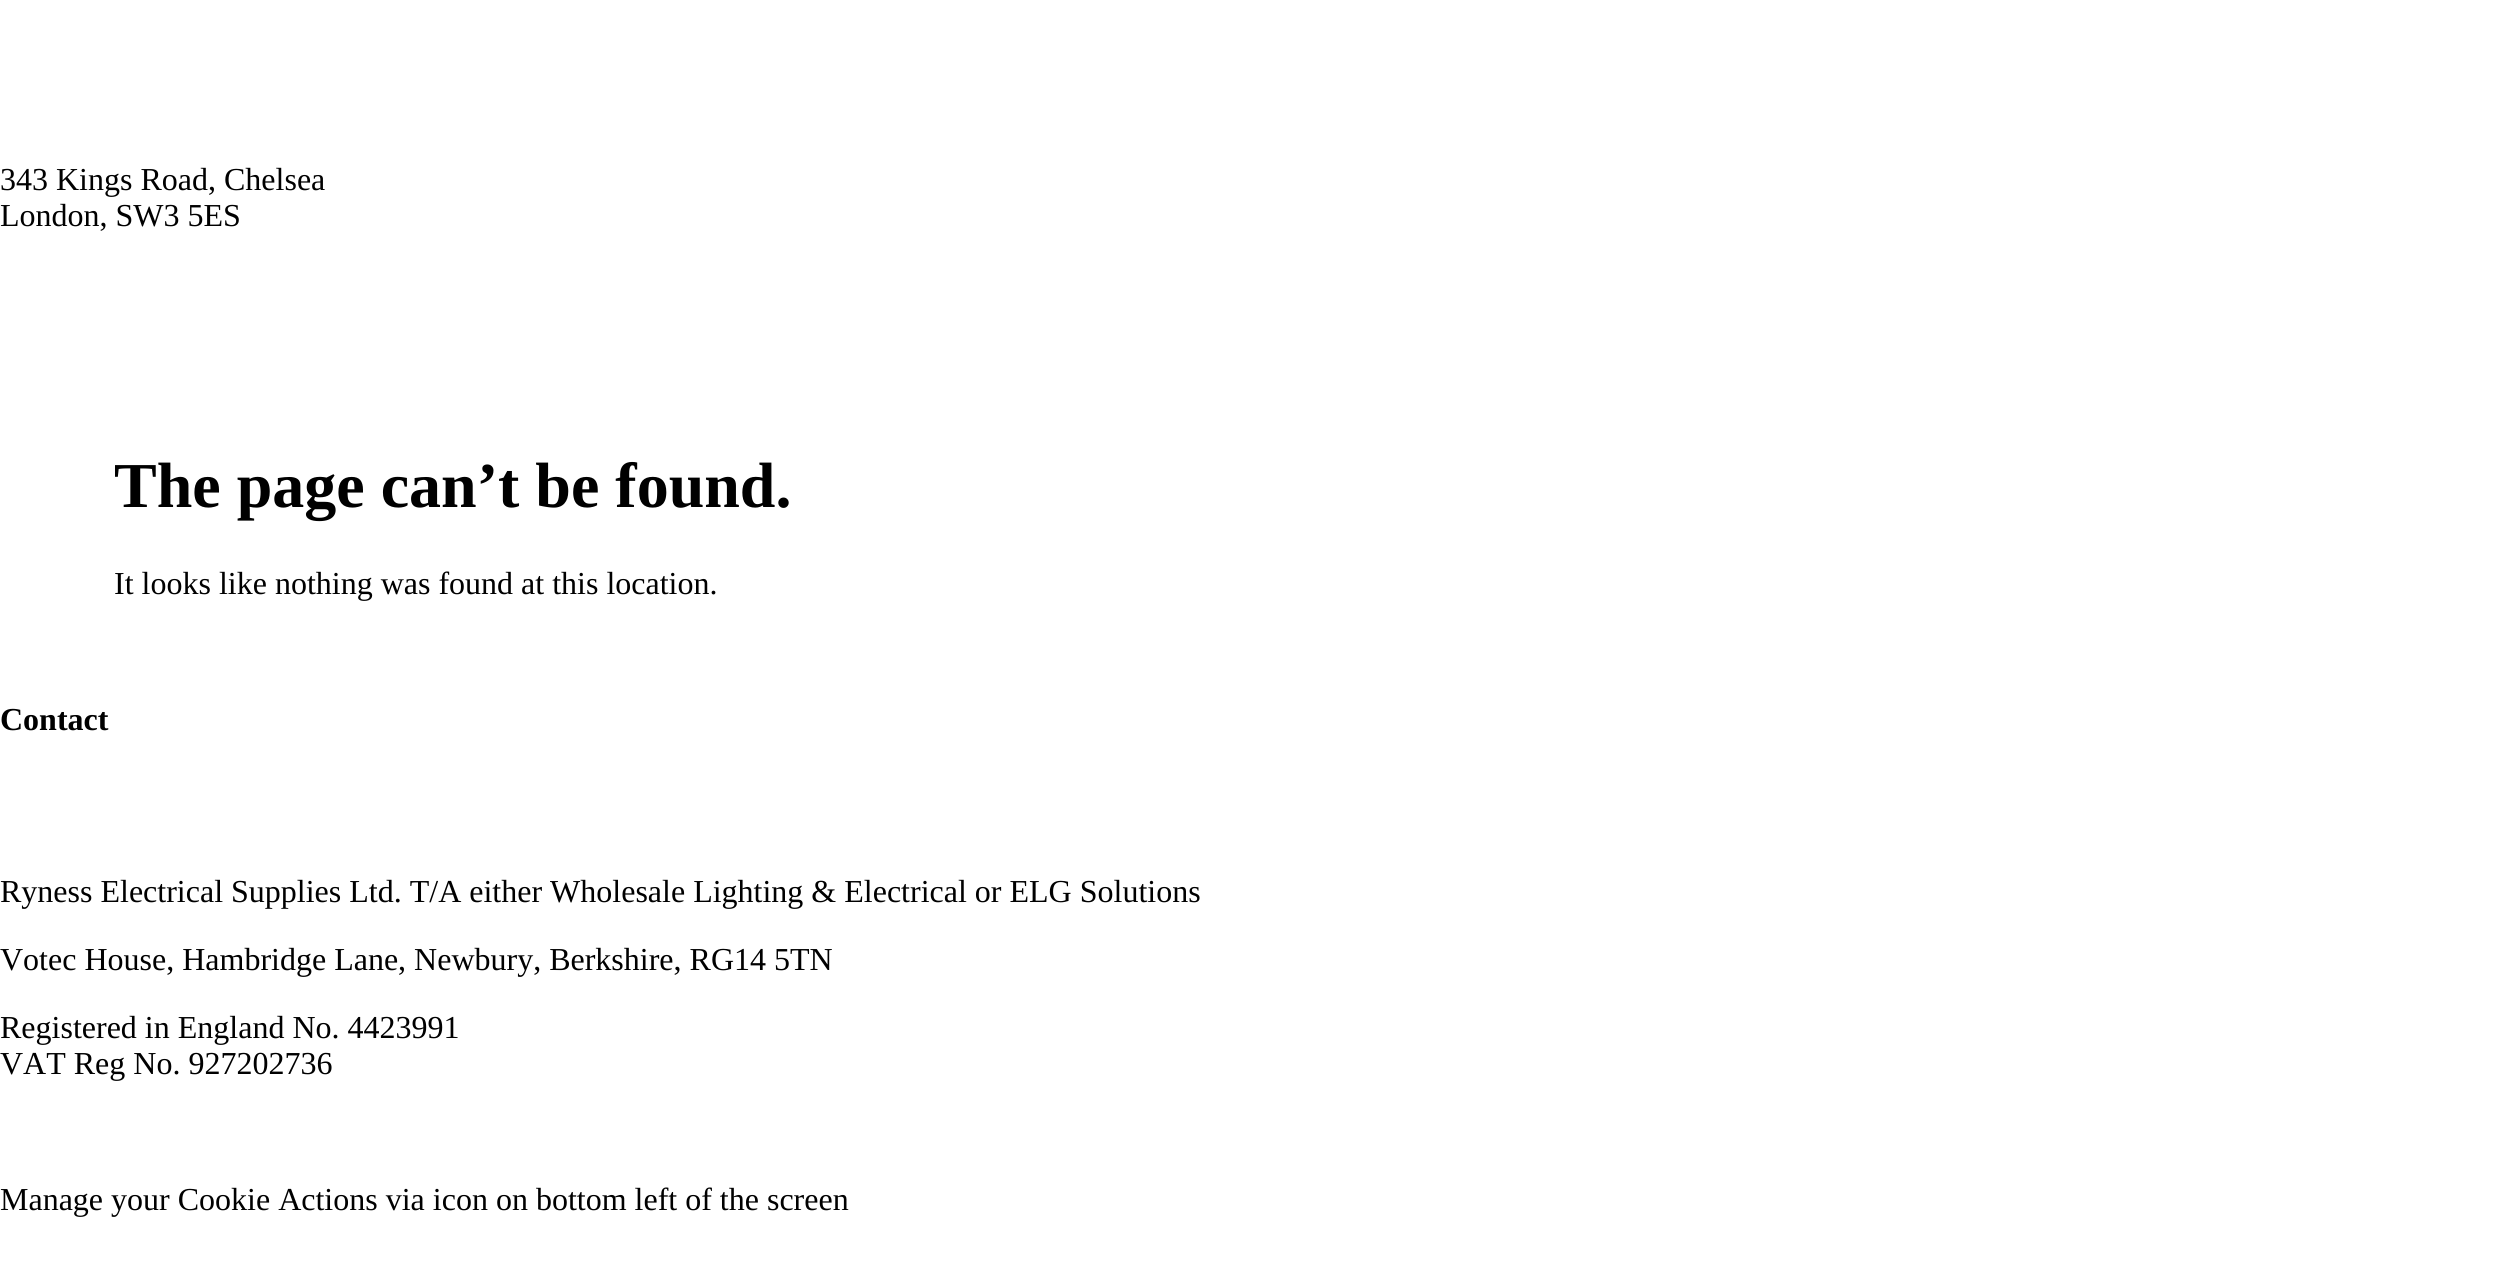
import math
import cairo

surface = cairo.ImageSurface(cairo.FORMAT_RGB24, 2508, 1261)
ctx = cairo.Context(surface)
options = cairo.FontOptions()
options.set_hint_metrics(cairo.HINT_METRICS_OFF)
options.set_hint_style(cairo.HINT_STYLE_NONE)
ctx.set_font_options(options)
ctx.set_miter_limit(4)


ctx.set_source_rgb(1, 1, 1)
ctx.paint()
ctx.select_font_face("Liberation Serif")
ctx.set_font_size(32)
ctx.set_source_rgb(0, 0, 0)
ctx.move_to(0, 190)
ctx.show_text("343 Kings Road, Chelsea")
ctx.move_to(0, 226)
ctx.show_text("London, SW3 5ES")
ctx.select_font_face("Liberation Serif", cairo.FONT_SLANT_NORMAL, cairo.FONT_WEIGHT_BOLD)
ctx.set_font_size(64)
ctx.move_to(114, 507)
ctx.show_text("The page can’t be found.")
ctx.select_font_face("Liberation Serif")
ctx.set_font_size(32)
ctx.move_to(114, 594)
ctx.show_text("It looks like nothing was found at this location.")
ctx.select_font_face("Liberation Serif", cairo.FONT_SLANT_NORMAL, cairo.FONT_WEIGHT_BOLD)
ctx.move_to(0, 730)
ctx.show_text("Contact")
ctx.select_font_face("Liberation Serif")
ctx.move_to(0, 902)
ctx.show_text("Ryness Electrical Supplies Ltd. T/A either Wholesale Lighting & Electrical or ELG Solutions")
ctx.move_to(0, 970)
ctx.show_text("Votec House, Hambridge Lane, Newbury, Berkshire, RG14 5TN")
ctx.move_to(0, 1038)
ctx.show_text("Registered in England No. 4423991")
ctx.move_to(0, 1074)
ctx.show_text("VAT Reg No. 927202736")
ctx.move_to(0, 1210)
ctx.show_text("Manage your Cookie Actions via icon on bottom left of the screen")
surface.write_to_png("page.png")
